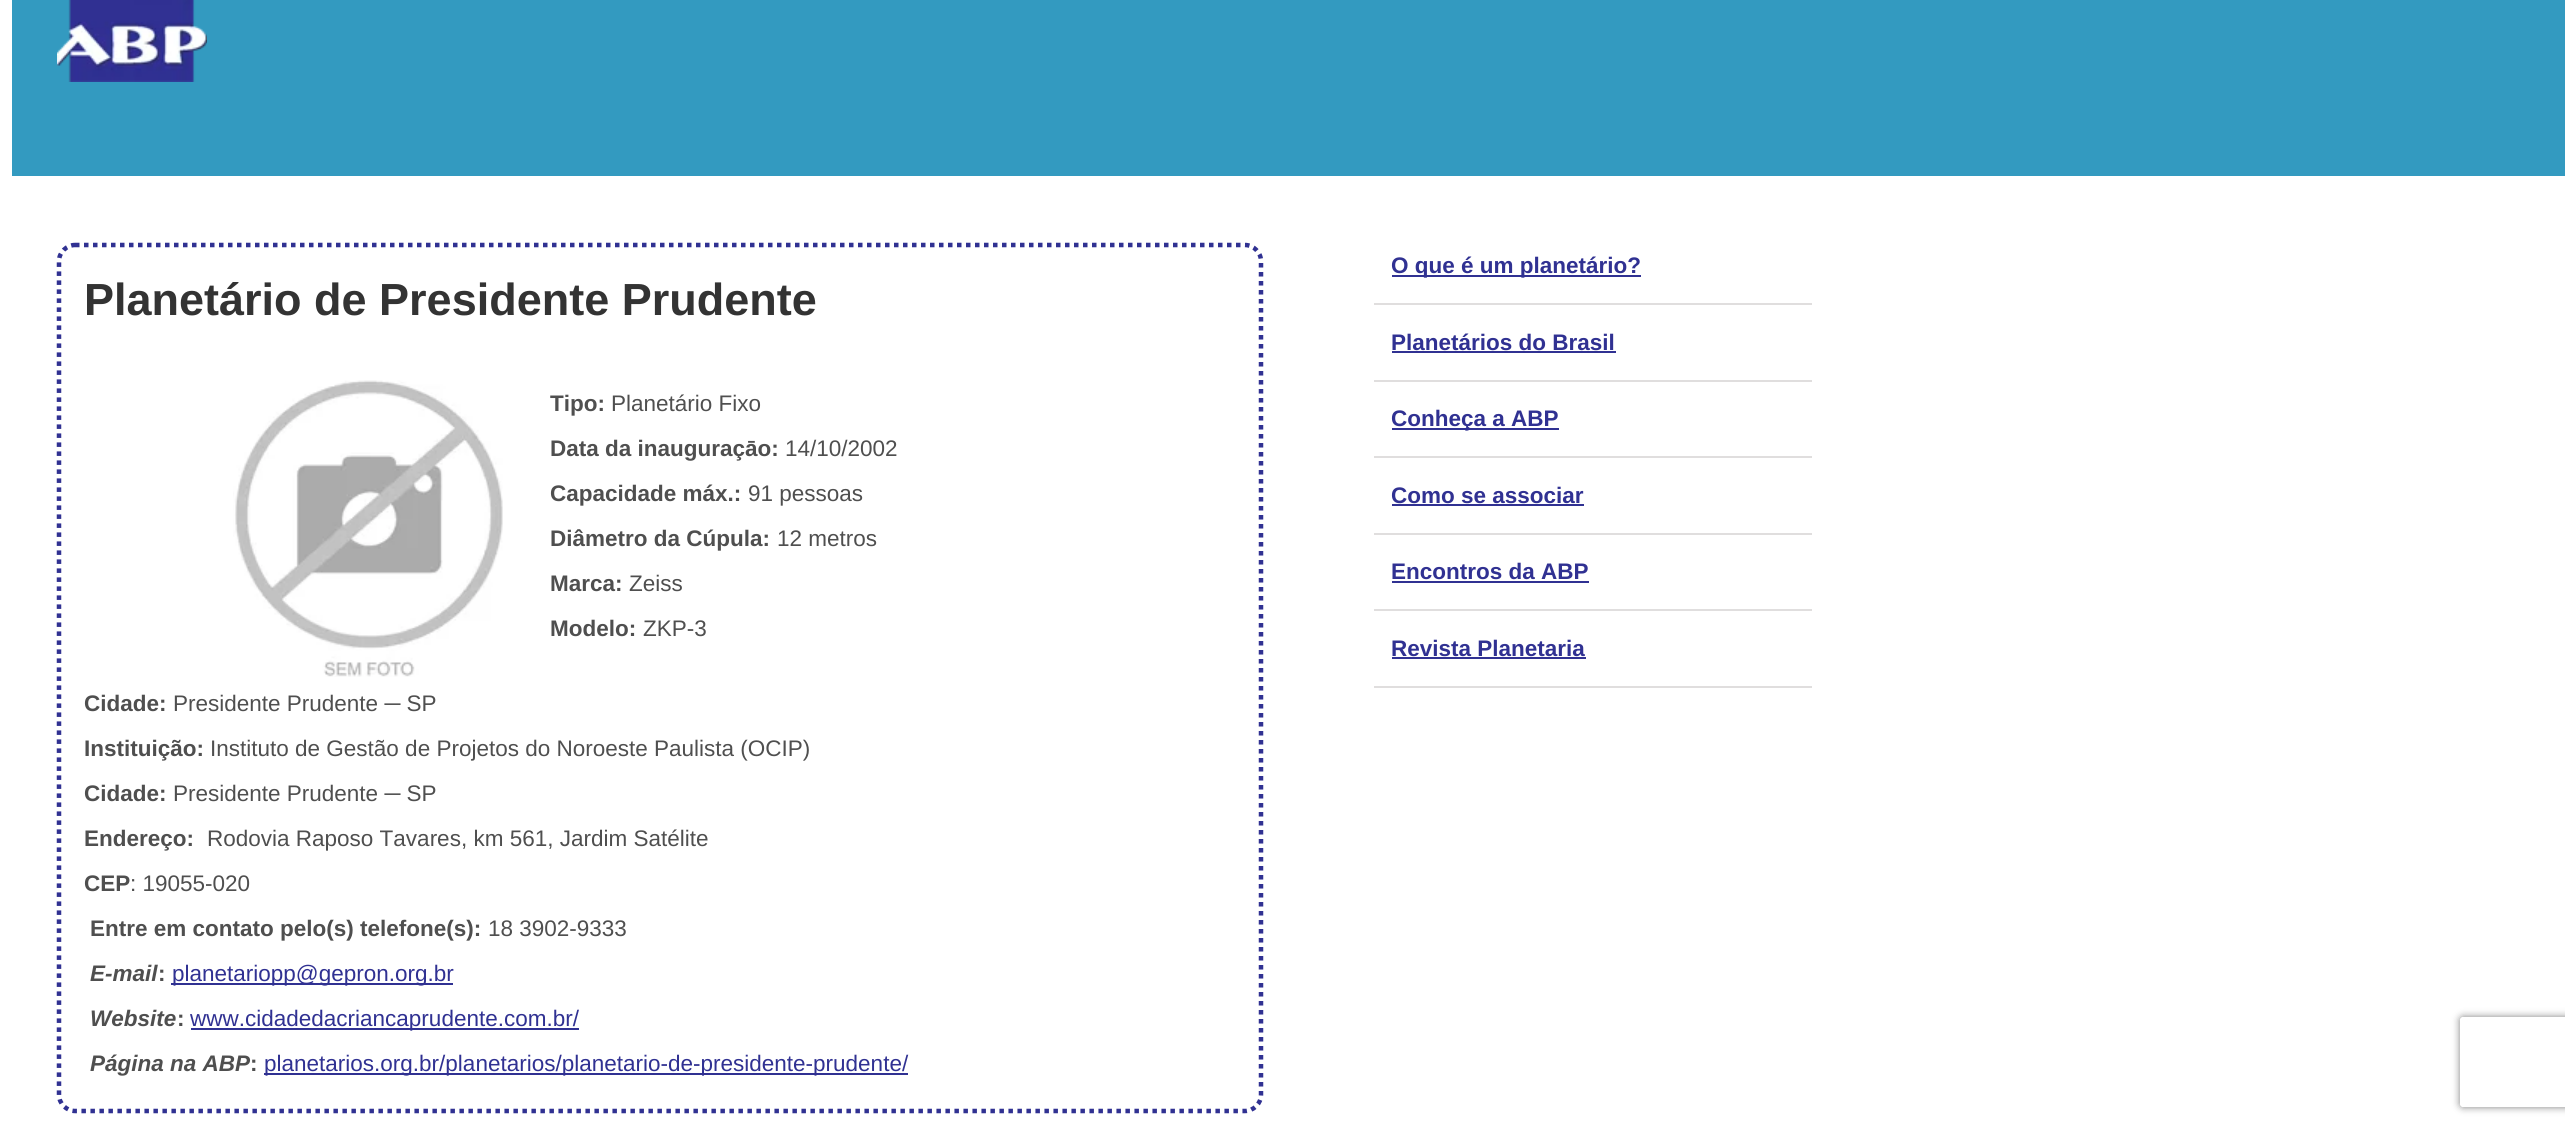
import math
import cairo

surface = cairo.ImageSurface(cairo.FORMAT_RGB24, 2565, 1128)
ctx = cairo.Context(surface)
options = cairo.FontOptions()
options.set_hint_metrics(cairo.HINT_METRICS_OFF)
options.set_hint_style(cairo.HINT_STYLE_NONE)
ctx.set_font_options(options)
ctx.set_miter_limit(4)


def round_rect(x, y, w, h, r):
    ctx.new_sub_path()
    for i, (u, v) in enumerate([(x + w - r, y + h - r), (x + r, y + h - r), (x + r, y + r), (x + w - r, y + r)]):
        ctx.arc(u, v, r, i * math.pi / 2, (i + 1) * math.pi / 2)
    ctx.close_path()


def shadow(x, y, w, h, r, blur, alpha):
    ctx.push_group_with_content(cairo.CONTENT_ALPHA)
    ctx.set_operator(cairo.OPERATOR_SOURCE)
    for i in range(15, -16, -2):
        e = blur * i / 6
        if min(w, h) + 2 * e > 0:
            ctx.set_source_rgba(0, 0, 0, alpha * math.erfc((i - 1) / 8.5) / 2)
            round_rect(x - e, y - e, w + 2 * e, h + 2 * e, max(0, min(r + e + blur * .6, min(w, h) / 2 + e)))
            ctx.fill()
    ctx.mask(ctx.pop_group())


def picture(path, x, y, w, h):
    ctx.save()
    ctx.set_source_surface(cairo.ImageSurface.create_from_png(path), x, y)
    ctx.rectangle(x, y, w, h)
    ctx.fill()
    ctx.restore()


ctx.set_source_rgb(1, 1, 1)
ctx.paint()
ctx.set_source_rgb(0.2, 0.604, 0.753)
ctx.rectangle(12, 0, 2553, 176)
ctx.fill()
picture("img1.png", 57, 0, 150, 82)
ctx.new_path()
ctx.move_to(75, 245)
ctx.line_to(1245, 245)
ctx.curve_to(1253.5, 245, 1261, 252.5, 1261, 261)
ctx.line_to(1261, 1095)
ctx.curve_to(1261, 1103.5, 1253.5, 1111, 1245, 1111)
ctx.line_to(75, 1111)
ctx.curve_to(66.5, 1111, 59, 1103.5, 59, 1095)
ctx.line_to(59, 261)
ctx.curve_to(59, 252.5, 66.5, 245, 75, 245)
ctx.close_path()
ctx.set_source_rgb(0.188, 0.192, 0.573)
ctx.set_line_width(4.5)
ctx.set_dash([4.5, 4.5])
ctx.stroke()
ctx.select_font_face("Liberation Sans", cairo.FONT_SLANT_NORMAL, cairo.FONT_WEIGHT_BOLD)
ctx.set_font_size(45)
ctx.set_source_rgb(0.2, 0.2, 0.2)
ctx.move_to(84, 315)
ctx.show_text("Planetário de Presidente Prudente")
picture("img2.png", 233, 380, 270, 297)
ctx.set_font_size(22.5)
ctx.set_source_rgb(0.31, 0.31, 0.31)
ctx.move_to(550, 411)
ctx.show_text("Tipo:")
ctx.select_font_face("Liberation Sans")
ctx.move_to(611, 411)
ctx.show_text("Planetário Fixo")
ctx.select_font_face("Liberation Sans", cairo.FONT_SLANT_NORMAL, cairo.FONT_WEIGHT_BOLD)
ctx.move_to(550, 456)
ctx.show_text("Data da inauguraçāo:")
ctx.select_font_face("Liberation Sans")
ctx.move_to(785, 456)
ctx.show_text("14/10/2002")
ctx.select_font_face("Liberation Sans", cairo.FONT_SLANT_NORMAL, cairo.FONT_WEIGHT_BOLD)
ctx.move_to(550, 501)
ctx.show_text("Capacidade máx.:")
ctx.select_font_face("Liberation Sans")
ctx.move_to(748, 501)
ctx.show_text("91 pessoas")
ctx.select_font_face("Liberation Sans", cairo.FONT_SLANT_NORMAL, cairo.FONT_WEIGHT_BOLD)
ctx.move_to(550, 546)
ctx.show_text("Diâmetro da Cúpula:")
ctx.select_font_face("Liberation Sans")
ctx.move_to(777, 546)
ctx.show_text("12 metros")
ctx.select_font_face("Liberation Sans", cairo.FONT_SLANT_NORMAL, cairo.FONT_WEIGHT_BOLD)
ctx.move_to(550, 591)
ctx.show_text("Marca:")
ctx.select_font_face("Liberation Sans")
ctx.move_to(629, 591)
ctx.show_text("Zeiss")
ctx.select_font_face("Liberation Sans", cairo.FONT_SLANT_NORMAL, cairo.FONT_WEIGHT_BOLD)
ctx.move_to(550, 636)
ctx.show_text("Modelo:")
ctx.select_font_face("Liberation Sans")
ctx.move_to(643, 636)
ctx.show_text("ZKP-3")
ctx.select_font_face("Liberation Sans", cairo.FONT_SLANT_NORMAL, cairo.FONT_WEIGHT_BOLD)
ctx.move_to(84, 711)
ctx.show_text("Cidade:")
ctx.select_font_face("Liberation Sans")
ctx.move_to(173, 711)
ctx.show_text("Presidente Prudente ─ SP")
ctx.select_font_face("Liberation Sans", cairo.FONT_SLANT_NORMAL, cairo.FONT_WEIGHT_BOLD)
ctx.move_to(84, 756)
ctx.show_text("Instituição:")
ctx.select_font_face("Liberation Sans")
ctx.move_to(210, 756)
ctx.show_text("Instituto de Gestão de Projetos do Noroeste Paulista (OCIP)")
ctx.select_font_face("Liberation Sans", cairo.FONT_SLANT_NORMAL, cairo.FONT_WEIGHT_BOLD)
ctx.move_to(84, 801)
ctx.show_text("Cidade:")
ctx.select_font_face("Liberation Sans")
ctx.move_to(173, 801)
ctx.show_text("Presidente Prudente ─ SP")
ctx.select_font_face("Liberation Sans", cairo.FONT_SLANT_NORMAL, cairo.FONT_WEIGHT_BOLD)
ctx.move_to(84, 846)
ctx.show_text("Endereço:")
ctx.select_font_face("Liberation Sans")
ctx.move_to(207, 846)
ctx.show_text("Rodovia Raposo Tavares, km 561, Jardim Satélite")
ctx.select_font_face("Liberation Sans", cairo.FONT_SLANT_NORMAL, cairo.FONT_WEIGHT_BOLD)
ctx.move_to(84, 891)
ctx.show_text("CEP")
ctx.select_font_face("Liberation Sans")
ctx.move_to(130, 891)
ctx.show_text(": 19055-020")
ctx.select_font_face("Liberation Sans", cairo.FONT_SLANT_NORMAL, cairo.FONT_WEIGHT_BOLD)
ctx.move_to(90, 936)
ctx.show_text("Entre em contato pelo(s) telefone(s):")
ctx.select_font_face("Liberation Sans")
ctx.move_to(488, 936)
ctx.show_text("18 3902-9333")
ctx.select_font_face("Liberation Sans", cairo.FONT_SLANT_ITALIC, cairo.FONT_WEIGHT_BOLD)
ctx.move_to(90, 981)
ctx.show_text("E-mail")
ctx.select_font_face("Liberation Sans", cairo.FONT_SLANT_NORMAL, cairo.FONT_WEIGHT_BOLD)
ctx.move_to(158, 981)
ctx.show_text(":")
ctx.set_source_rgb(0.188, 0.192, 0.573)
ctx.rectangle(171, 983, 282, 2)
ctx.fill()
ctx.select_font_face("Liberation Sans")
ctx.move_to(172, 981)
ctx.show_text("planetariopp@gepron.org.br")
ctx.select_font_face("Liberation Sans", cairo.FONT_SLANT_ITALIC, cairo.FONT_WEIGHT_BOLD)
ctx.set_source_rgb(0.31, 0.31, 0.31)
ctx.move_to(90, 1026)
ctx.show_text("Website")
ctx.select_font_face("Liberation Sans", cairo.FONT_SLANT_NORMAL, cairo.FONT_WEIGHT_BOLD)
ctx.move_to(177, 1026)
ctx.show_text(":")
ctx.set_source_rgb(0.188, 0.192, 0.573)
ctx.rectangle(191, 1028, 388, 2)
ctx.fill()
ctx.select_font_face("Liberation Sans")
ctx.move_to(190, 1026)
ctx.show_text("www.cidadedacriancaprudente.com.br/")
ctx.select_font_face("Liberation Sans", cairo.FONT_SLANT_ITALIC, cairo.FONT_WEIGHT_BOLD)
ctx.set_source_rgb(0.31, 0.31, 0.31)
ctx.move_to(90, 1071)
ctx.show_text("Página na ABP")
ctx.select_font_face("Liberation Sans", cairo.FONT_SLANT_NORMAL, cairo.FONT_WEIGHT_BOLD)
ctx.move_to(250, 1071)
ctx.show_text(":")
ctx.set_source_rgb(0.188, 0.192, 0.573)
ctx.rectangle(264, 1073, 644, 2)
ctx.fill()
ctx.select_font_face("Liberation Sans")
ctx.move_to(264, 1071)
ctx.show_text("planetarios.org.br/planetarios/planetario-de-presidente-prudente/")
ctx.set_source_rgb(0.878, 0.871, 0.871)
ctx.rectangle(1374, 303, 438, 2)
ctx.fill()
ctx.set_source_rgb(0.188, 0.192, 0.573)
ctx.rectangle(1392, 275, 249, 2)
ctx.fill()
ctx.select_font_face("Liberation Sans", cairo.FONT_SLANT_NORMAL, cairo.FONT_WEIGHT_BOLD)
ctx.move_to(1391, 273)
ctx.show_text("O que é um planetário?")
ctx.set_source_rgb(0.878, 0.871, 0.871)
ctx.rectangle(1374, 380, 438, 2)
ctx.fill()
ctx.set_source_rgb(0.188, 0.192, 0.573)
ctx.move_to(1391, 350)
ctx.show_text("Planetários do Brasil")
ctx.rectangle(1392, 351, 224, 2)
ctx.fill()
ctx.set_source_rgb(0.878, 0.871, 0.871)
ctx.rectangle(1374, 456, 438, 2)
ctx.fill()
ctx.set_source_rgb(0.188, 0.192, 0.573)
ctx.rectangle(1392, 428, 167, 2)
ctx.fill()
ctx.move_to(1391, 426)
ctx.show_text("Conheça a ABP")
ctx.set_source_rgb(0.878, 0.871, 0.871)
ctx.rectangle(1374, 533, 438, 2)
ctx.fill()
ctx.set_source_rgb(0.188, 0.192, 0.573)
ctx.move_to(1391, 503)
ctx.show_text("Como se associar")
ctx.rectangle(1392, 504, 192, 2)
ctx.fill()
ctx.set_source_rgb(0.878, 0.871, 0.871)
ctx.rectangle(1374, 609, 438, 2)
ctx.fill()
ctx.set_source_rgb(0.188, 0.192, 0.573)
ctx.move_to(1391, 579)
ctx.show_text("Encontros da ABP")
ctx.rectangle(1392, 581, 197, 2)
ctx.fill()
ctx.set_source_rgb(0.878, 0.871, 0.871)
ctx.rectangle(1374, 686, 438, 2)
ctx.fill()
ctx.set_source_rgb(0.188, 0.192, 0.573)
ctx.move_to(1391, 656)
ctx.show_text("Revista Planetaria")
ctx.rectangle(1392, 657, 194, 2)
ctx.fill()
ctx.save()
ctx.set_fill_rule(cairo.FILL_RULE_EVEN_ODD)
ctx.new_path()
ctx.move_to(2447, 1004)
ctx.line_to(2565, 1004)
ctx.line_to(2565, 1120)
ctx.line_to(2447, 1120)
ctx.close_path()
ctx.move_to(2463, 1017)
ctx.line_to(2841, 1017)
ctx.curve_to(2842.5, 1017, 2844, 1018.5, 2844, 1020)
ctx.line_to(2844, 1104)
ctx.curve_to(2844, 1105.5, 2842.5, 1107, 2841, 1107)
ctx.line_to(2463, 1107)
ctx.curve_to(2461.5, 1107, 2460, 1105.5, 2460, 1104)
ctx.line_to(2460, 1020)
ctx.curve_to(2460, 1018.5, 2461.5, 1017, 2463, 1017)
ctx.close_path()
ctx.clip()
ctx.set_source_rgb(0.502, 0.502, 0.502)
shadow(2460, 1017, 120, 90, 3, 4, 1)
ctx.restore()
surface.write_to_png("page.png")
